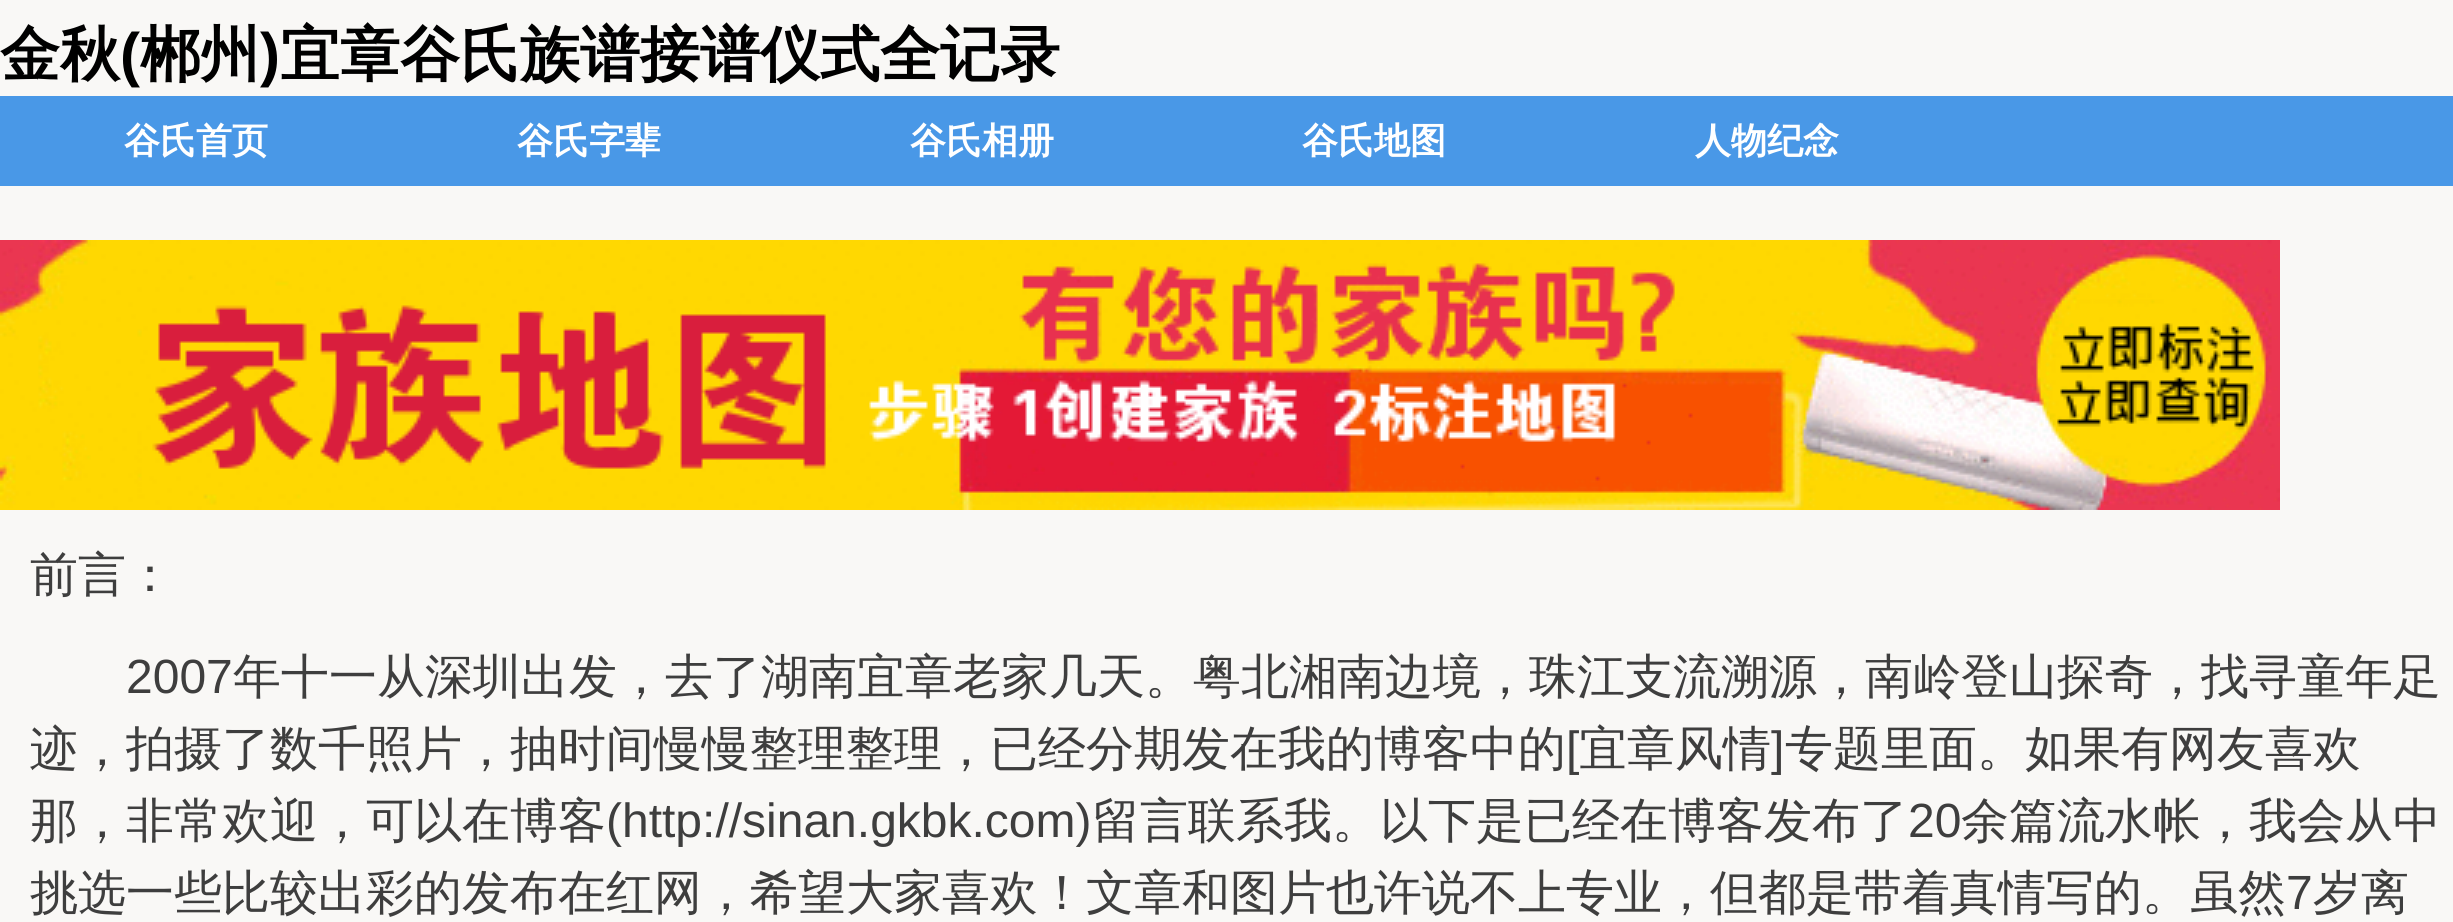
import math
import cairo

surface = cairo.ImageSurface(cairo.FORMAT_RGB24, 2453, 922)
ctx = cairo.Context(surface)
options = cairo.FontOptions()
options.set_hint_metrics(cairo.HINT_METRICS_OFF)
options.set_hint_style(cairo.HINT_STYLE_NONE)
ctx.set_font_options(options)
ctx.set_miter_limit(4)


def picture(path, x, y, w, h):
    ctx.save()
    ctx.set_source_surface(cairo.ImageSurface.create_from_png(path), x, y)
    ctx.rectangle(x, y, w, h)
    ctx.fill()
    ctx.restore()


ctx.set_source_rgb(0.973, 0.969, 0.961)
ctx.paint()
ctx.select_font_face("WenQuanYi Zen Hei", cairo.FONT_SLANT_NORMAL, cairo.FONT_WEIGHT_BOLD)
ctx.set_font_size(60)
ctx.set_source_rgb(0, 0, 0)
ctx.move_to(0, 75)
ctx.show_text("金秋")
ctx.select_font_face("Liberation Sans", cairo.FONT_SLANT_NORMAL, cairo.FONT_WEIGHT_BOLD)
ctx.move_to(120, 75)
ctx.show_text("(")
ctx.select_font_face("WenQuanYi Zen Hei", cairo.FONT_SLANT_NORMAL, cairo.FONT_WEIGHT_BOLD)
ctx.move_to(140, 75)
ctx.show_text("郴州")
ctx.select_font_face("Liberation Sans", cairo.FONT_SLANT_NORMAL, cairo.FONT_WEIGHT_BOLD)
ctx.move_to(260, 75)
ctx.show_text(")")
ctx.select_font_face("WenQuanYi Zen Hei", cairo.FONT_SLANT_NORMAL, cairo.FONT_WEIGHT_BOLD)
ctx.move_to(280, 75)
ctx.show_text("宜章谷氏族谱接谱仪式全记录")
ctx.set_source_rgb(0.286, 0.596, 0.906)
ctx.rectangle(0, 96, 2453, 90)
ctx.fill()
ctx.set_font_size(36)
ctx.set_source_rgb(1, 1, 1)
ctx.move_to(124, 153)
ctx.show_text("谷氏首页")
ctx.move_to(517, 153)
ctx.show_text("谷氏字辈")
ctx.move_to(910, 153)
ctx.show_text("谷氏相册")
ctx.move_to(1302, 153)
ctx.show_text("谷氏地图")
ctx.move_to(1695, 153)
ctx.show_text("人物纪念")
picture("img1.png", 0, 240, 2280, 270)
ctx.select_font_face("WenQuanYi Zen Hei Medium")
ctx.set_font_size(48)
ctx.set_source_rgb(0.243, 0.243, 0.243)
ctx.move_to(30, 591)
ctx.show_text("前言：")
ctx.select_font_face("Liberation Sans")
ctx.move_to(126, 693)
ctx.show_text("2007")
ctx.select_font_face("WenQuanYi Zen Hei Medium")
ctx.move_to(233, 693)
ctx.show_text("年十一从深圳出发，去了湖南宜章老家几天。粤北湘南边境，珠江支流溯源，南岭登山探奇，找寻童年足")
ctx.move_to(30, 765)
ctx.show_text("迹，拍摄了数千照片，抽时间慢慢整理整理，已经分期发在我的博客中的")
ctx.select_font_face("Liberation Sans")
ctx.move_to(1566, 765)
ctx.show_text("[")
ctx.select_font_face("WenQuanYi Zen Hei Medium")
ctx.move_to(1579, 765)
ctx.show_text("宜章风情")
ctx.select_font_face("Liberation Sans")
ctx.move_to(1771, 765)
ctx.show_text("]")
ctx.select_font_face("WenQuanYi Zen Hei Medium")
ctx.move_to(1785, 765)
ctx.show_text("专题里面。如果有网友喜欢")
ctx.move_to(30, 837)
ctx.show_text("那，非常欢迎，可以在博客")
ctx.select_font_face("Liberation Sans")
ctx.move_to(606, 837)
ctx.show_text("(http://sinan.gkbk.com)")
ctx.select_font_face("WenQuanYi Zen Hei Medium")
ctx.move_to(1092, 837)
ctx.show_text("留言联系我。以下是已经在博客发布了")
ctx.select_font_face("Liberation Sans")
ctx.move_to(1908, 837)
ctx.show_text("20")
ctx.select_font_face("WenQuanYi Zen Hei Medium")
ctx.move_to(1961, 837)
ctx.show_text("余篇流水帐，我会从中")
ctx.move_to(30, 909)
ctx.show_text("挑选一些比较出彩的发布在红网，希望大家喜欢！文章和图片也许说不上专业，但都是带着真情写的。虽然")
ctx.select_font_face("Liberation Sans")
ctx.move_to(2286, 909)
ctx.show_text("7")
ctx.select_font_face("WenQuanYi Zen Hei Medium")
ctx.move_to(2313, 909)
ctx.show_text("岁离")
surface.write_to_png("page.png")
